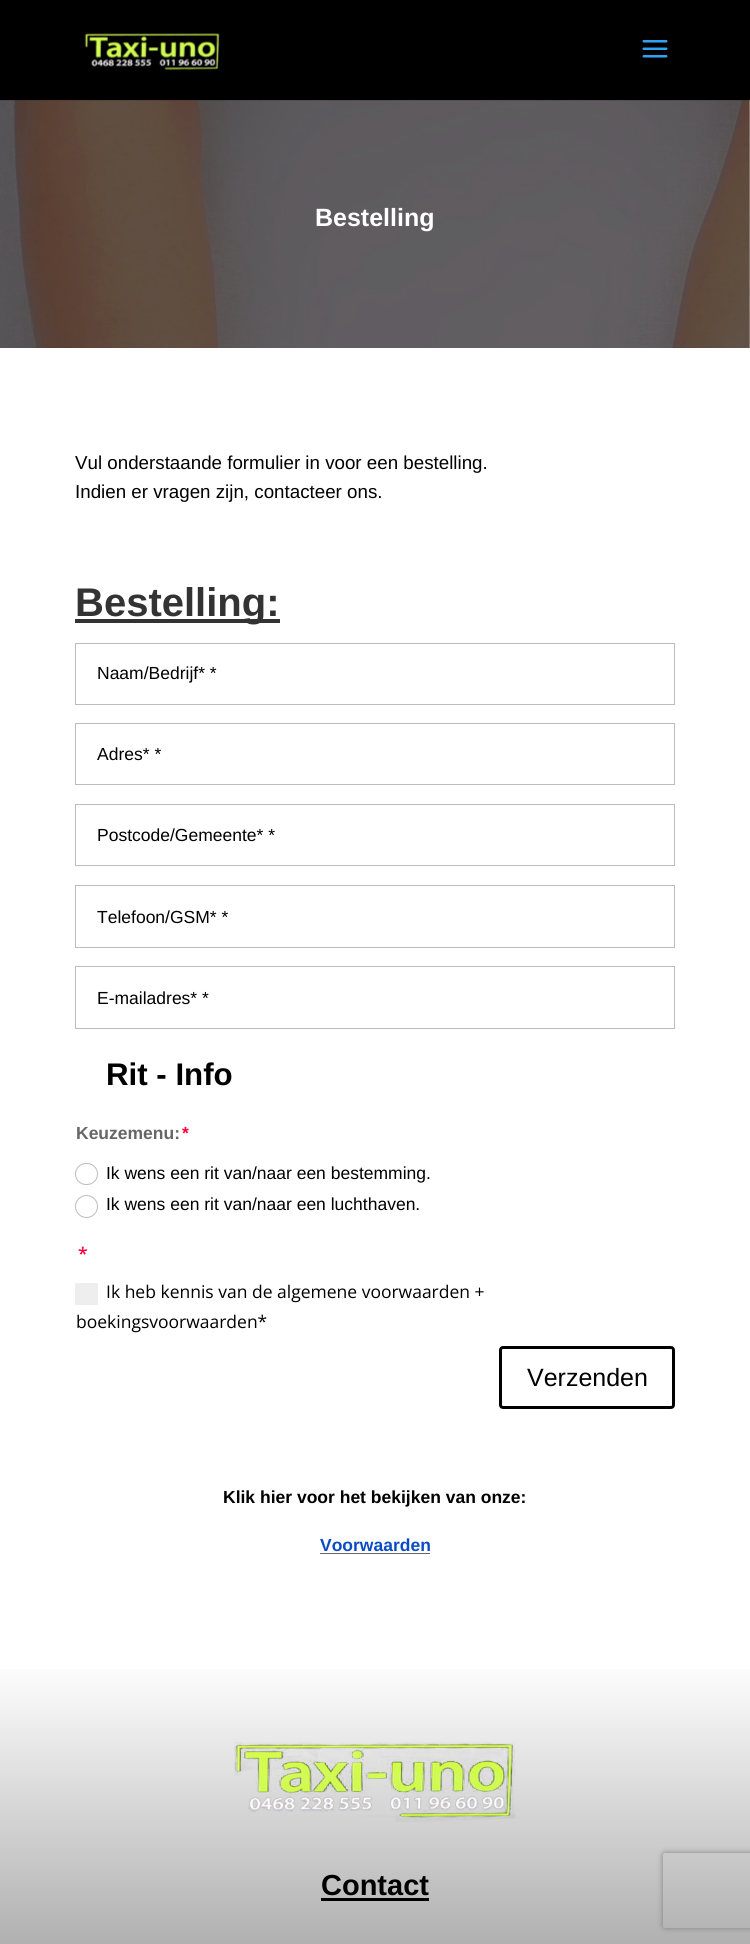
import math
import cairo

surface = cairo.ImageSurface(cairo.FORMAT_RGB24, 750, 1944)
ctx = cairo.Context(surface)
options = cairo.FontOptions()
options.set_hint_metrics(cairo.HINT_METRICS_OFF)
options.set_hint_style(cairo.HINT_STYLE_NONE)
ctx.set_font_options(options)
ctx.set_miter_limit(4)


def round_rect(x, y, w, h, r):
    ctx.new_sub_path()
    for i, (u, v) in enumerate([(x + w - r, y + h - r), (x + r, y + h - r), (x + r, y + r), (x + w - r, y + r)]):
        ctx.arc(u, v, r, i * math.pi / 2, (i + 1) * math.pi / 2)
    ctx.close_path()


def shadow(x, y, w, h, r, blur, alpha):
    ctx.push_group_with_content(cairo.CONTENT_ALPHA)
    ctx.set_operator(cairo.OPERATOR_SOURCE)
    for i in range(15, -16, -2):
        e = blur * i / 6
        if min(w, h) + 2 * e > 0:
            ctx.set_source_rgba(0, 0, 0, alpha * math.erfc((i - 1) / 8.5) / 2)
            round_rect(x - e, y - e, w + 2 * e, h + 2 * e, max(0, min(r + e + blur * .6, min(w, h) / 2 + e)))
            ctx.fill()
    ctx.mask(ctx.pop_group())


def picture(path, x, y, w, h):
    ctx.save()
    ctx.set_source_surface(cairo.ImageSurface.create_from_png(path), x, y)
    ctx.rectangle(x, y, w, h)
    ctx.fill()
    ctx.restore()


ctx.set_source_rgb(1, 1, 1)
ctx.paint()
picture("img3.png", 0, 100, 750, 248)
ctx.set_source_rgba(0, 0, 0, 0.1)
ctx.rectangle(0, 100, 750, 1)
ctx.fill()
ctx.set_source_rgb(0, 0, 0)
ctx.rectangle(0, 0, 750, 100)
ctx.fill()
picture("img1.png", 84, 33, 136, 37)
picture("img2.png", 642, 40, 26, 18)
ctx.select_font_face("Liberation Sans", cairo.FONT_SLANT_NORMAL, cairo.FONT_WEIGHT_BOLD)
ctx.set_font_size(25)
ctx.set_source_rgb(1, 1, 1)
ctx.move_to(315, 226)
ctx.show_text("Bestelling")
ctx.select_font_face("Liberation Sans")
ctx.set_font_size(18.75)
ctx.set_source_rgb(0, 0, 0)
ctx.move_to(75, 469)
ctx.show_text("Vul onderstaande formulier in voor een bestelling.")
ctx.move_to(75, 498)
ctx.show_text("Indien er vragen zijn, contacteer ons.")
ctx.set_source_rgb(0.2, 0.2, 0.2)
ctx.rectangle(75, 619, 205, 4)
ctx.fill()
ctx.select_font_face("Liberation Sans", cairo.FONT_SLANT_NORMAL, cairo.FONT_WEIGHT_BOLD)
ctx.set_font_size(40)
ctx.move_to(75, 616)
ctx.show_text("Bestelling:")
ctx.rectangle(75.5, 643.5, 599, 61)
ctx.set_source_rgb(0.737, 0.737, 0.737)
ctx.set_line_width(1)
ctx.stroke()
ctx.select_font_face("Liberation Sans")
ctx.set_font_size(17.5)
ctx.set_source_rgb(0, 0, 0)
ctx.move_to(97, 679)
ctx.show_text("Naam/Bedrijf* *")
ctx.rectangle(75.5, 723.5, 599, 61)
ctx.set_source_rgb(0.737, 0.737, 0.737)
ctx.stroke()
ctx.set_source_rgb(0, 0, 0)
ctx.move_to(97, 760)
ctx.show_text("Adres* *")
ctx.rectangle(75.5, 804.5, 599, 61)
ctx.set_source_rgb(0.737, 0.737, 0.737)
ctx.stroke()
ctx.set_source_rgb(0, 0, 0)
ctx.move_to(97, 841)
ctx.show_text("Postcode/Gemeente* *")
ctx.rectangle(75.5, 885.5, 599, 62)
ctx.set_source_rgb(0.737, 0.737, 0.737)
ctx.stroke()
ctx.set_source_rgb(0, 0, 0)
ctx.move_to(97, 923)
ctx.show_text("Telefoon/GSM* *")
ctx.rectangle(75.5, 966.5, 599, 62)
ctx.set_source_rgb(0.737, 0.737, 0.737)
ctx.stroke()
ctx.set_source_rgb(0, 0, 0)
ctx.move_to(97, 1004)
ctx.show_text("E-mailadres* *")
ctx.select_font_face("Liberation Sans", cairo.FONT_SLANT_NORMAL, cairo.FONT_WEIGHT_BOLD)
ctx.set_font_size(31.25)
ctx.move_to(106, 1085)
ctx.show_text("Rit - Info")
ctx.set_font_size(17.5)
ctx.set_source_rgb(0.4, 0.4, 0.4)
ctx.move_to(76, 1139)
ctx.show_text("Keuzemenu:")
ctx.set_source_rgb(1, 0, 0.22)
ctx.move_to(182, 1139)
ctx.show_text("*")
round_rect(75.5, 1163.5, 22, 21, 10.5)
ctx.set_source_rgb(0.737, 0.737, 0.737)
ctx.stroke()
ctx.select_font_face("Liberation Sans")
ctx.set_source_rgb(0, 0, 0)
ctx.move_to(106, 1179)
ctx.show_text("Ik wens een rit van/naar een bestemming.")
ctx.new_path()
ctx.arc(86.5, 1206.5, 11, 0, 2 * math.pi)
ctx.set_source_rgb(0.737, 0.737, 0.737)
ctx.stroke()
ctx.set_source_rgb(0, 0, 0)
ctx.move_to(106, 1210)
ctx.show_text("Ik wens een rit van/naar een luchthaven.")
ctx.select_font_face("Open Sans SemiBold")
ctx.set_source_rgb(1, 0, 0.22)
ctx.move_to(78, 1260)
ctx.show_text("*")
ctx.set_source_rgb(0.933, 0.933, 0.933)
ctx.rectangle(75, 1283, 23, 22)
ctx.fill()
ctx.select_font_face("Open Sans")
ctx.set_source_rgb(0, 0, 0)
ctx.move_to(106, 1298)
ctx.show_text("Ik heb kennis van de algemene voorwaarden +")
ctx.move_to(76, 1328)
ctx.show_text("boekingsvoorwaarden*")
round_rect(500.5, 1347.5, 173, 60, 2.5)
ctx.set_line_width(3)
ctx.stroke()
ctx.select_font_face("Liberation Sans")
ctx.set_font_size(25)
ctx.move_to(527, 1386)
ctx.show_text("Verzenden")
ctx.select_font_face("Liberation Sans", cairo.FONT_SLANT_NORMAL, cairo.FONT_WEIGHT_BOLD)
ctx.set_font_size(17.5)
ctx.move_to(223, 1503)
ctx.show_text("Klik hier voor het bekijken van onze:")
ctx.set_source_rgb(0.043, 0.298, 0.769)
ctx.move_to(320, 1551)
ctx.show_text("Voorwaarden")
ctx.set_source_rgb(0.4, 0.4, 0.4)
ctx.rectangle(320, 1553, 110, 1)
ctx.fill()
gradient = cairo.LinearGradient(375, 1660, 375, 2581)
gradient.add_color_stop_rgba(0, 1, 1, 1, 1)
gradient.add_color_stop_rgba(1, 0, 0, 0, 1)
ctx.set_source(gradient)
ctx.rectangle(0, 1669, 750, 275)
ctx.fill()
picture("img4.png", 234, 1742, 282, 80)
ctx.set_font_size(29)
ctx.set_source_rgb(0, 0, 0)
ctx.move_to(321, 1895)
ctx.show_text("Contact")
ctx.rectangle(321, 1898, 108, 3)
ctx.fill()
ctx.save()
ctx.set_fill_rule(cairo.FILL_RULE_EVEN_ODD)
ctx.new_path()
ctx.move_to(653, 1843)
ctx.line_to(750, 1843)
ctx.line_to(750, 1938)
ctx.line_to(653, 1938)
ctx.close_path()
ctx.move_to(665.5, 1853)
ctx.line_to(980.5, 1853)
ctx.curve_to(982, 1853, 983, 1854, 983, 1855.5)
ctx.line_to(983, 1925.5)
ctx.curve_to(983, 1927, 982, 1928, 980.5, 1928)
ctx.line_to(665.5, 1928)
ctx.curve_to(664, 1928, 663, 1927, 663, 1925.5)
ctx.line_to(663, 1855.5)
ctx.curve_to(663, 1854, 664, 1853, 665.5, 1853)
ctx.close_path()
ctx.clip()
ctx.set_source_rgb(0.502, 0.502, 0.502)
shadow(663, 1853, 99, 75, 2.5, 3, 1)
ctx.restore()
surface.write_to_png("page.png")
